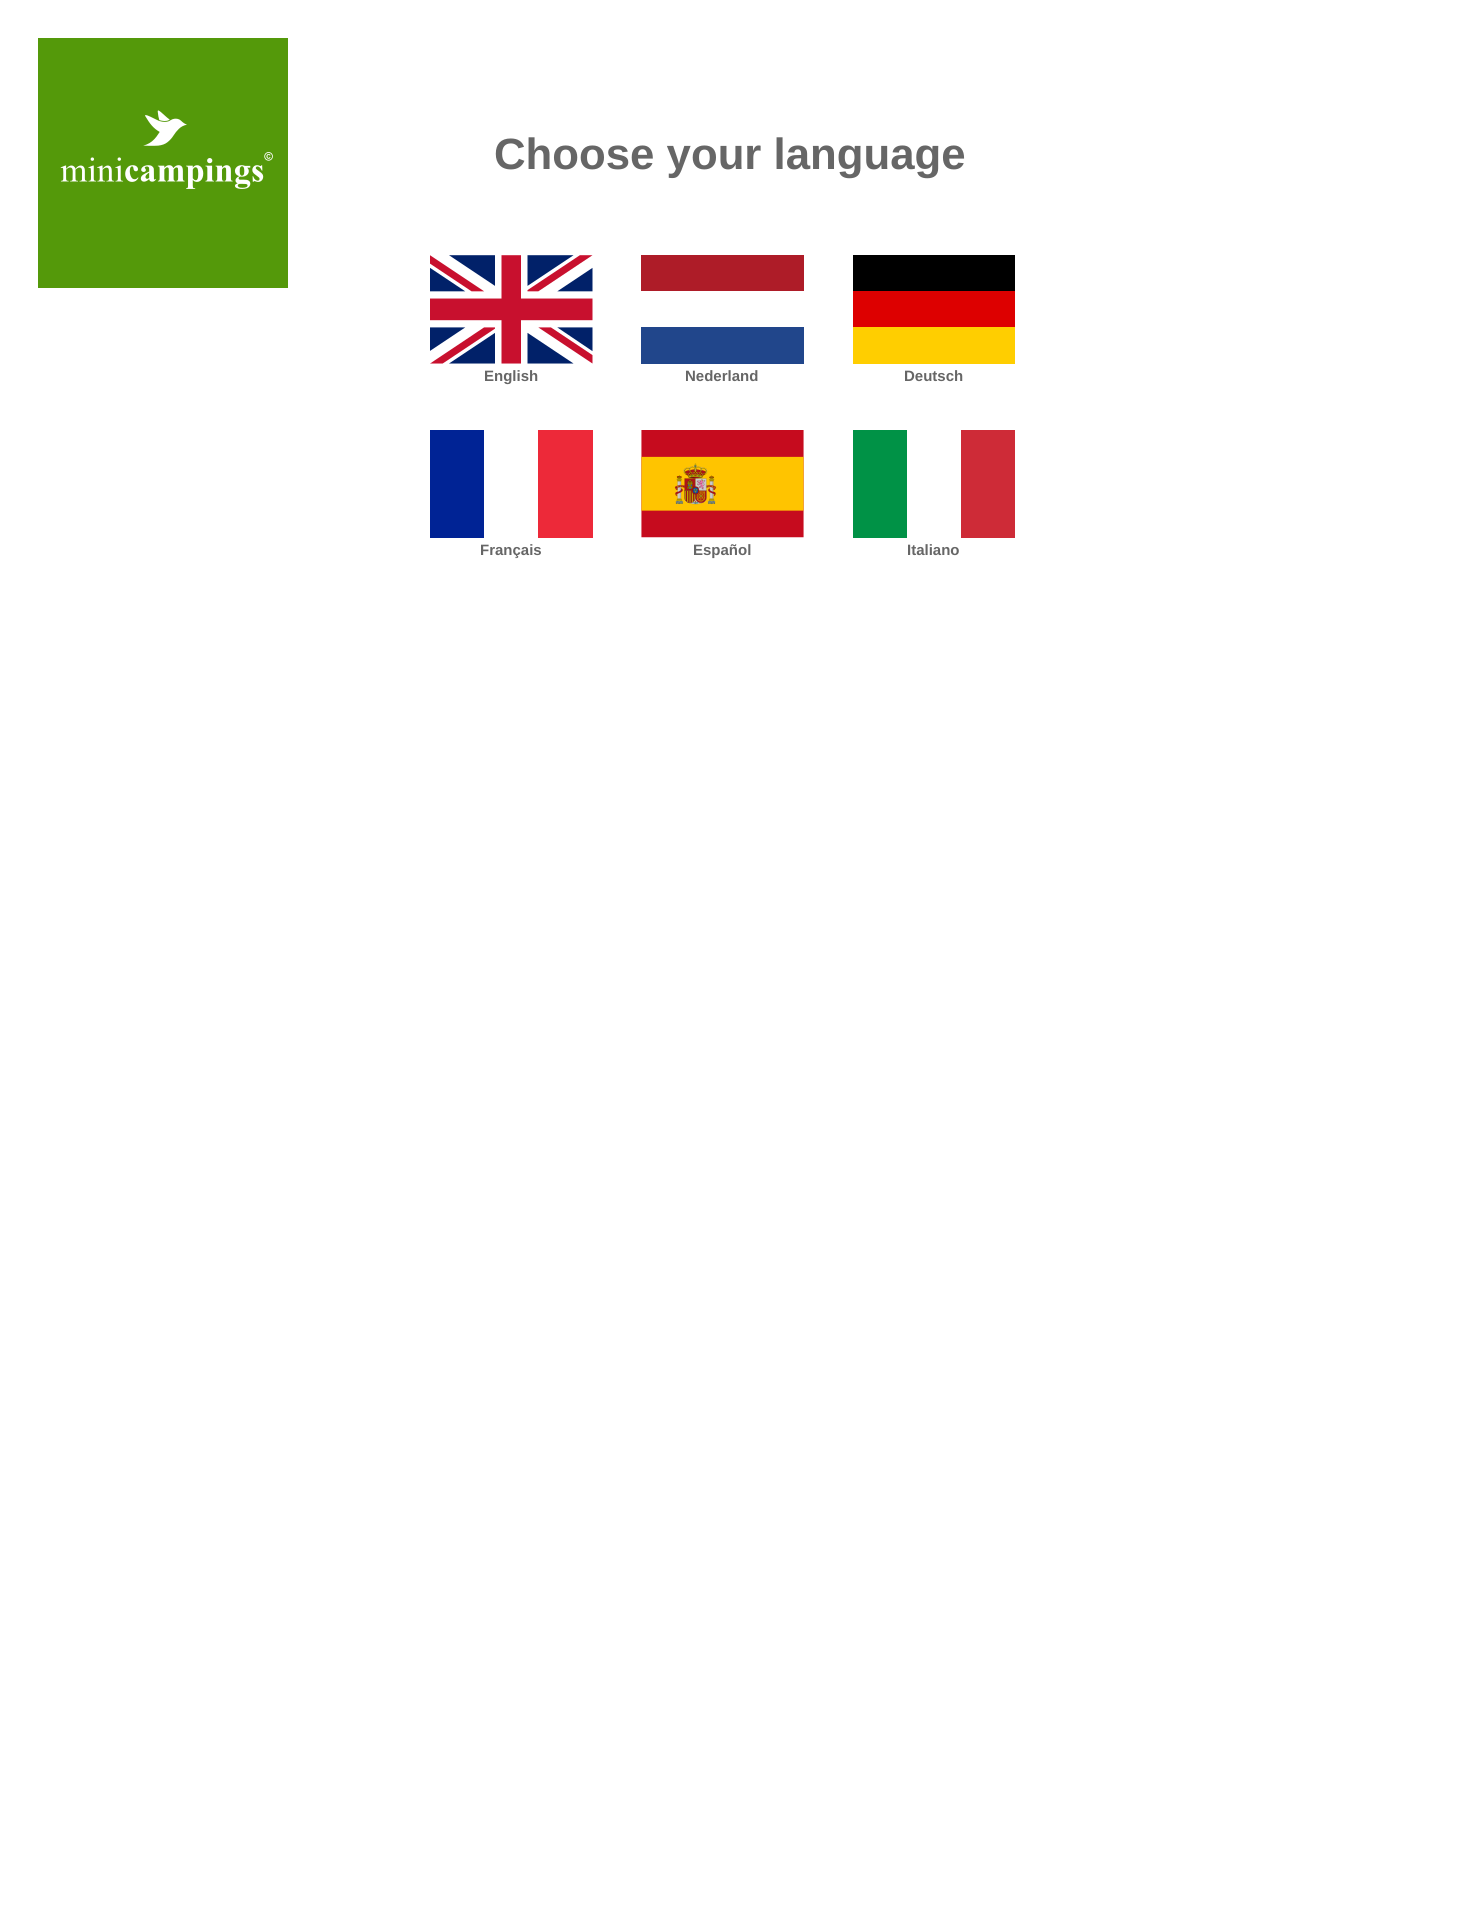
import math
import cairo

surface = cairo.ImageSurface(cairo.FORMAT_RGB24, 1459, 1921)
ctx = cairo.Context(surface)
options = cairo.FontOptions()
options.set_hint_metrics(cairo.HINT_METRICS_OFF)
options.set_hint_style(cairo.HINT_STYLE_NONE)
ctx.set_font_options(options)
ctx.set_miter_limit(4)


def picture(path, x, y, w, h):
    ctx.save()
    ctx.set_source_surface(cairo.ImageSurface.create_from_png(path), x, y)
    ctx.rectangle(x, y, w, h)
    ctx.fill()
    ctx.restore()


ctx.set_source_rgb(1, 1, 1)
ctx.paint()
picture("img1.png", 38, 38, 250, 250)
ctx.select_font_face("Liberation Sans", cairo.FONT_SLANT_NORMAL, cairo.FONT_WEIGHT_BOLD)
ctx.set_font_size(43.75)
ctx.set_source_rgb(0.4, 0.4, 0.4)
ctx.move_to(494, 169)
ctx.show_text("Choose your language")
picture("img2.png", 430, 255, 163, 109)
ctx.set_font_size(15)
ctx.move_to(484, 381)
ctx.show_text("English")
ctx.set_source_rgb(0.682, 0.11, 0.157)
ctx.rectangle(641, 255, 163, 36)
ctx.fill()
ctx.set_source_rgb(0.129, 0.275, 0.545)
ctx.rectangle(641, 327, 163, 37)
ctx.fill()
ctx.set_source_rgb(0.4, 0.4, 0.4)
ctx.move_to(685, 381)
ctx.show_text("Nederland")
ctx.set_source_rgb(0, 0, 0)
ctx.rectangle(853, 255, 162, 36)
ctx.fill()
ctx.set_source_rgb(0.867, 0, 0)
ctx.rectangle(853, 291, 162, 36)
ctx.fill()
ctx.set_source_rgb(1, 0.808, 0)
ctx.rectangle(853, 327, 162, 37)
ctx.fill()
ctx.set_source_rgb(0.4, 0.4, 0.4)
ctx.move_to(904, 381)
ctx.show_text("Deutsch")
ctx.set_source_rgb(0, 0.137, 0.584)
ctx.rectangle(430, 430, 54, 108)
ctx.fill()
ctx.set_source_rgb(0.929, 0.161, 0.224)
ctx.rectangle(538, 430, 55, 108)
ctx.fill()
ctx.set_source_rgb(0.4, 0.4, 0.4)
ctx.move_to(480, 555)
ctx.show_text("Français")
picture("img3.png", 641, 430, 163, 108)
ctx.move_to(693, 555)
ctx.show_text("Español")
ctx.set_source_rgb(0, 0.573, 0.275)
ctx.rectangle(853, 430, 54, 108)
ctx.fill()
ctx.set_source_rgb(0.808, 0.169, 0.216)
ctx.rectangle(961, 430, 54, 108)
ctx.fill()
ctx.set_source_rgb(0.4, 0.4, 0.4)
ctx.move_to(907, 555)
ctx.show_text("Italiano")
surface.write_to_png("page.png")
